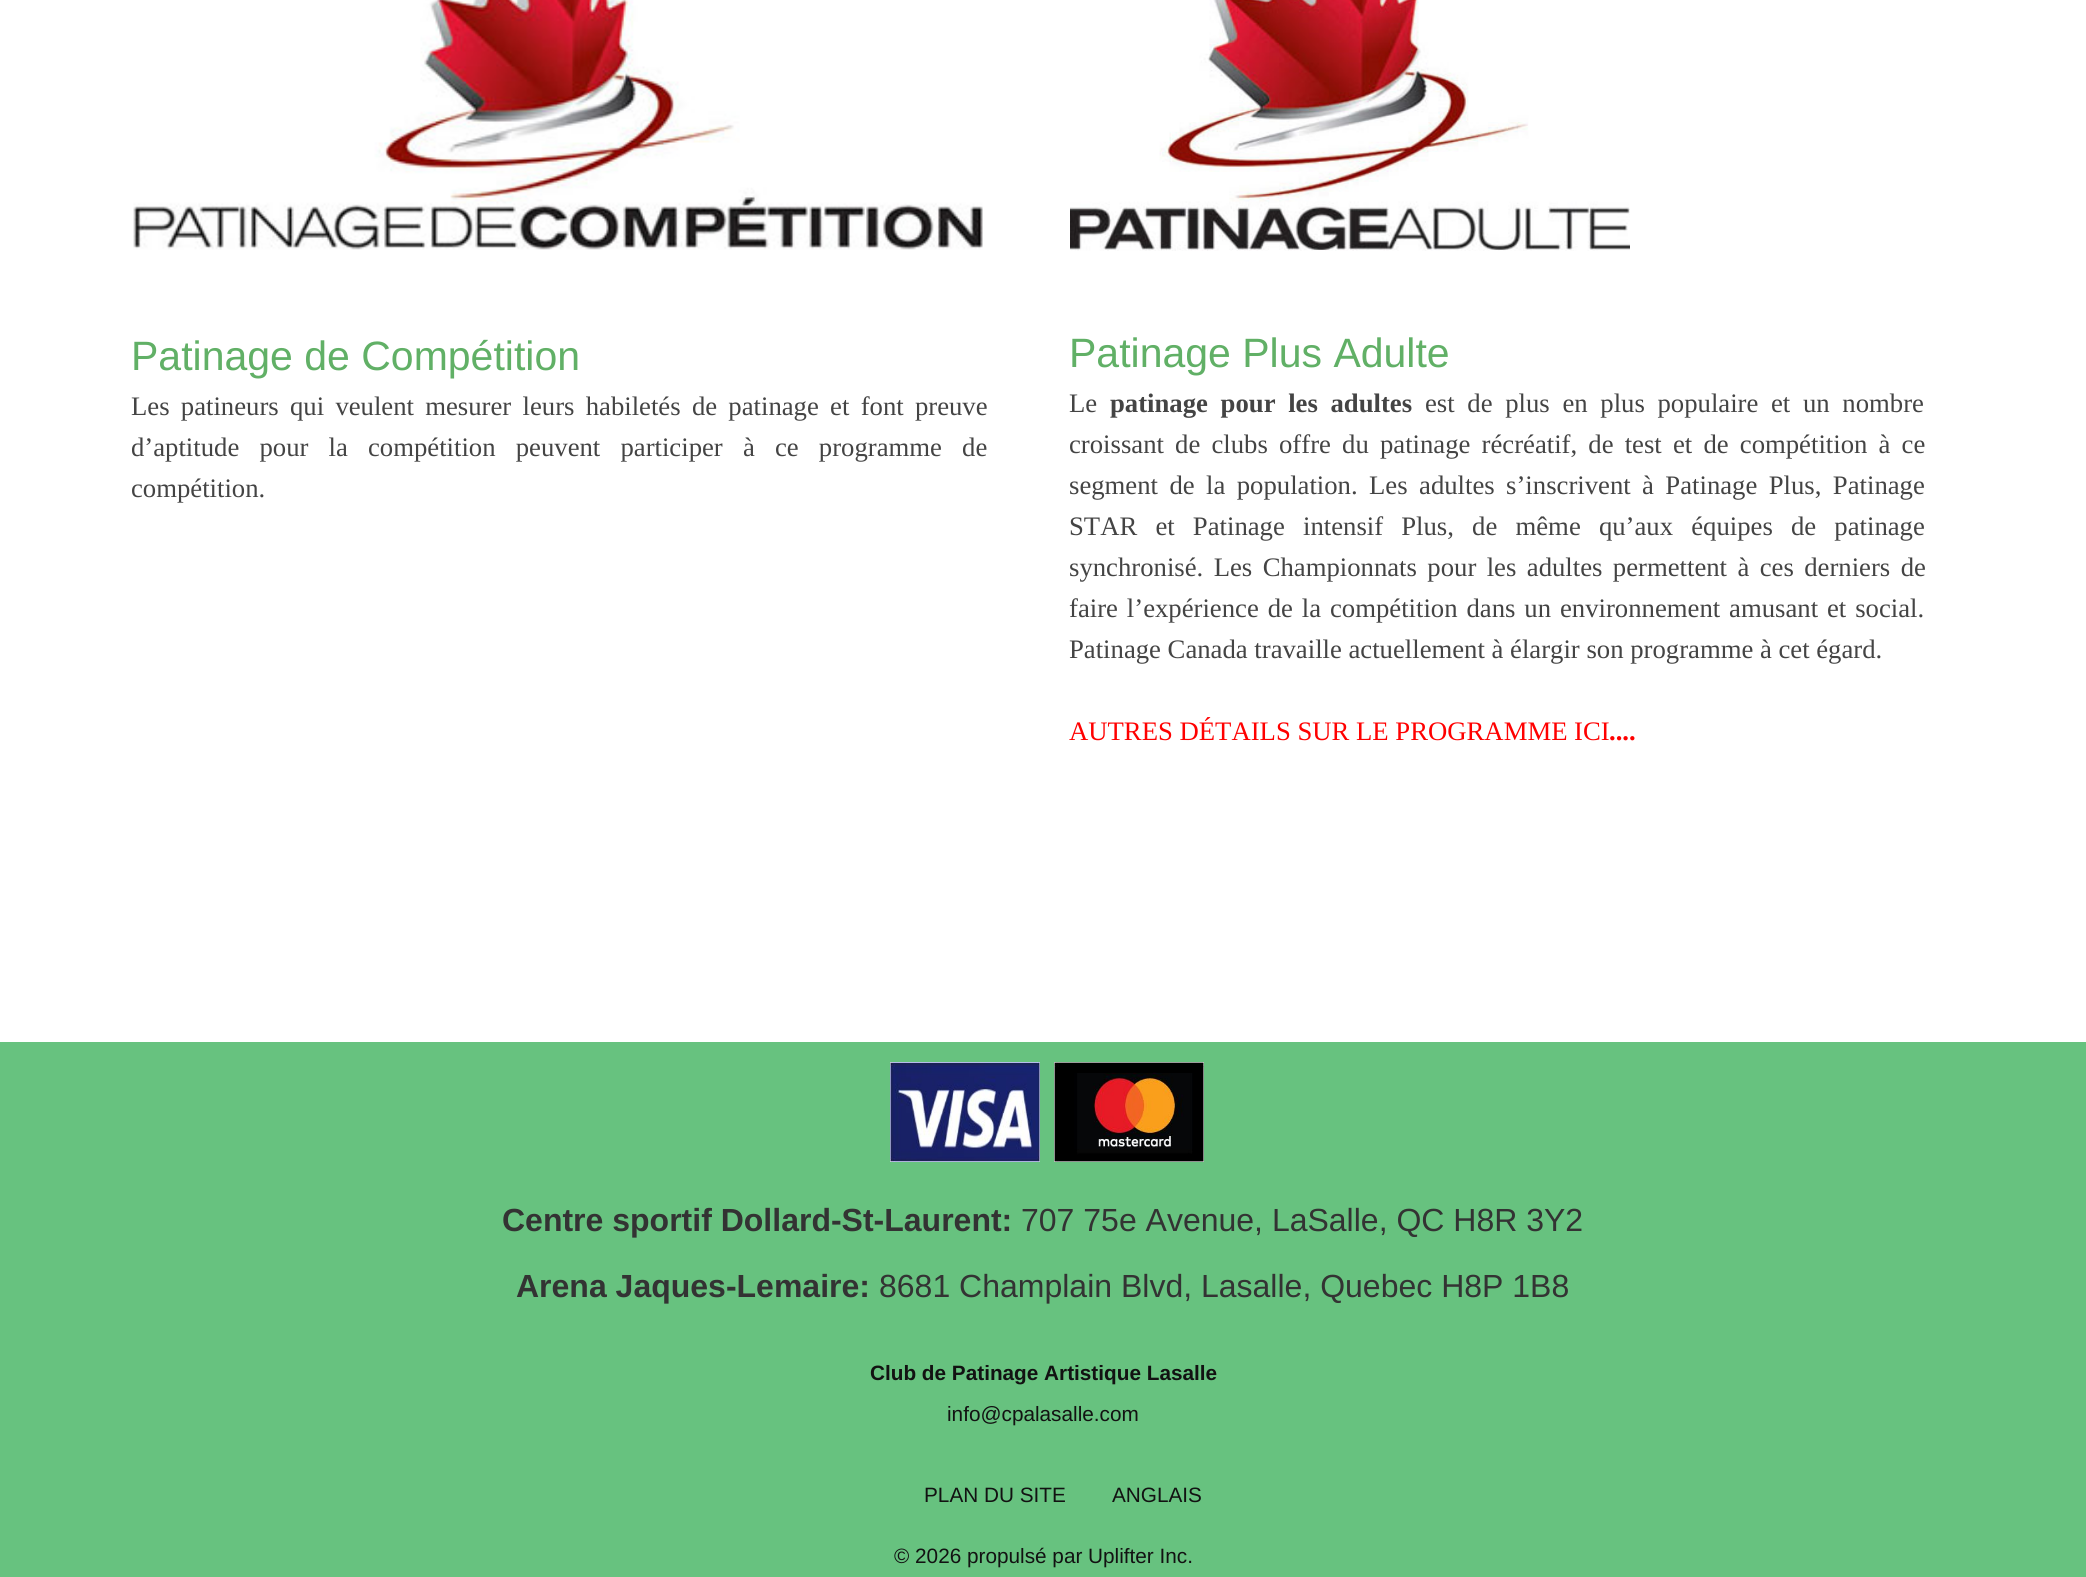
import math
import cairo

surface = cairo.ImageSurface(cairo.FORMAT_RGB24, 2086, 1577)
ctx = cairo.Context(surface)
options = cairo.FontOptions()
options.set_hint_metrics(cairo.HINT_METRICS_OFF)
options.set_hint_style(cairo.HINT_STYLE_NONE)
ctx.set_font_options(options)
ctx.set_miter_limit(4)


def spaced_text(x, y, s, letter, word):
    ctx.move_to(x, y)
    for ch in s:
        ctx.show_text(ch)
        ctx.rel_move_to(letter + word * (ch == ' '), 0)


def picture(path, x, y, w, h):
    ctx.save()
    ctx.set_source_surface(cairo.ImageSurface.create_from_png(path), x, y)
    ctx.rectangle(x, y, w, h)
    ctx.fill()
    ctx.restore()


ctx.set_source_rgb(1, 1, 1)
ctx.paint()
picture("img1.png", 133, 0, 850, 250)
ctx.select_font_face("Liberation Sans")
ctx.set_font_size(41)
ctx.set_source_rgb(0.38, 0.69, 0.4)
ctx.move_to(131, 370)
ctx.show_text("Patinage de Compétition")
ctx.select_font_face("Liberation Serif")
ctx.set_font_size(26.7)
ctx.set_source_rgb(0.267, 0.267, 0.267)
spaced_text(131, 415, "Les patineurs qui veulent mesurer leurs habiletés de patinage et font preuve", 0, 4.6)
spaced_text(131, 456, "d’aptitude pour la compétition peuvent participer à ce programme de", 0, 13.5)
ctx.move_to(131, 497)
ctx.show_text("compétition.")
picture("img2.png", 1070, 0, 560, 251)
ctx.select_font_face("Liberation Sans")
ctx.set_font_size(41)
ctx.set_source_rgb(0.38, 0.69, 0.4)
ctx.move_to(1069, 367)
ctx.show_text("Patinage Plus Adulte")
ctx.select_font_face("Liberation Serif")
ctx.set_font_size(26.7)
ctx.set_source_rgb(0.267, 0.267, 0.267)
ctx.move_to(1069, 412)
ctx.show_text("Le")
ctx.select_font_face("Liberation Serif", cairo.FONT_SLANT_NORMAL, cairo.FONT_WEIGHT_BOLD)
spaced_text(1110, 412, "patinage pour les adultes", 0, 6)
ctx.select_font_face("Liberation Serif")
spaced_text(1425, 412, "est de plus en plus populaire et un nombre", 0, 6)
spaced_text(1069, 453, "croissant de clubs offre du patinage récréatif, de test et de compétition à ce", 0, 4.5)
spaced_text(1069, 494, "segment de la population. Les adultes s’inscrivent à Patinage Plus, Patinage", 0, 4.75)
spaced_text(1069, 535, "STAR et Patinage intensif Plus, de même qu’aux équipes de patinage", 0, 11.5)
spaced_text(1069, 576, "synchronisé. Les Championnats pour les adultes permettent à ces derniers de", 0, 3.75)
spaced_text(1069, 617, "faire l’expérience de la compétition dans un environnement amusant et social.", 0, 2.25)
ctx.move_to(1069, 658)
ctx.show_text("Patinage Canada travaille actuellement à élargir son programme à cet égard.")
ctx.set_source_rgb(1, 0, 0)
ctx.move_to(1069, 740)
ctx.show_text("AUTRES DÉTAILS SUR LE PROGRAMME ICI")
ctx.select_font_face("Liberation Serif", cairo.FONT_SLANT_NORMAL, cairo.FONT_WEIGHT_BOLD)
ctx.move_to(1609, 740)
ctx.show_text("....")
ctx.set_source_rgb(0.404, 0.761, 0.498)
ctx.rectangle(0, 1042, 2086, 535)
ctx.fill()
picture("img3.png", 890, 1062, 150, 100)
picture("img4.png", 1054, 1062, 150, 100)
ctx.select_font_face("Liberation Sans", cairo.FONT_SLANT_NORMAL, cairo.FONT_WEIGHT_BOLD)
ctx.set_font_size(32)
ctx.set_source_rgb(0.2, 0.2, 0.2)
ctx.move_to(502, 1231)
ctx.show_text("Centre sportif Dollard-St-Laurent:")
ctx.select_font_face("Liberation Sans")
ctx.move_to(1021, 1231)
ctx.show_text("707 75e Avenue, LaSalle, QC H8R 3Y2")
ctx.select_font_face("Liberation Sans", cairo.FONT_SLANT_NORMAL, cairo.FONT_WEIGHT_BOLD)
ctx.move_to(516, 1297)
ctx.show_text("Arena Jaques-Lemaire:")
ctx.select_font_face("Liberation Sans")
ctx.move_to(879, 1297)
ctx.show_text("8681 Champlain Blvd, Lasalle, Quebec H8P 1B8")
ctx.select_font_face("Liberation Sans", cairo.FONT_SLANT_NORMAL, cairo.FONT_WEIGHT_BOLD)
ctx.set_font_size(20.75)
ctx.set_source_rgb(0.071, 0.071, 0.071)
ctx.move_to(870, 1380)
ctx.show_text("Club de Patinage Artistique Lasalle")
ctx.select_font_face("Liberation Sans")
ctx.move_to(947, 1421)
ctx.show_text("info@cpalasalle.com")
ctx.move_to(924, 1502)
ctx.show_text("PLAN DU SITE")
ctx.move_to(1112, 1502)
ctx.show_text("ANGLAIS")
ctx.move_to(894, 1563)
ctx.show_text("© 2026 propulsé par")
ctx.move_to(1088, 1563)
ctx.show_text("Uplifter Inc.")
surface.write_to_png("page.png")
